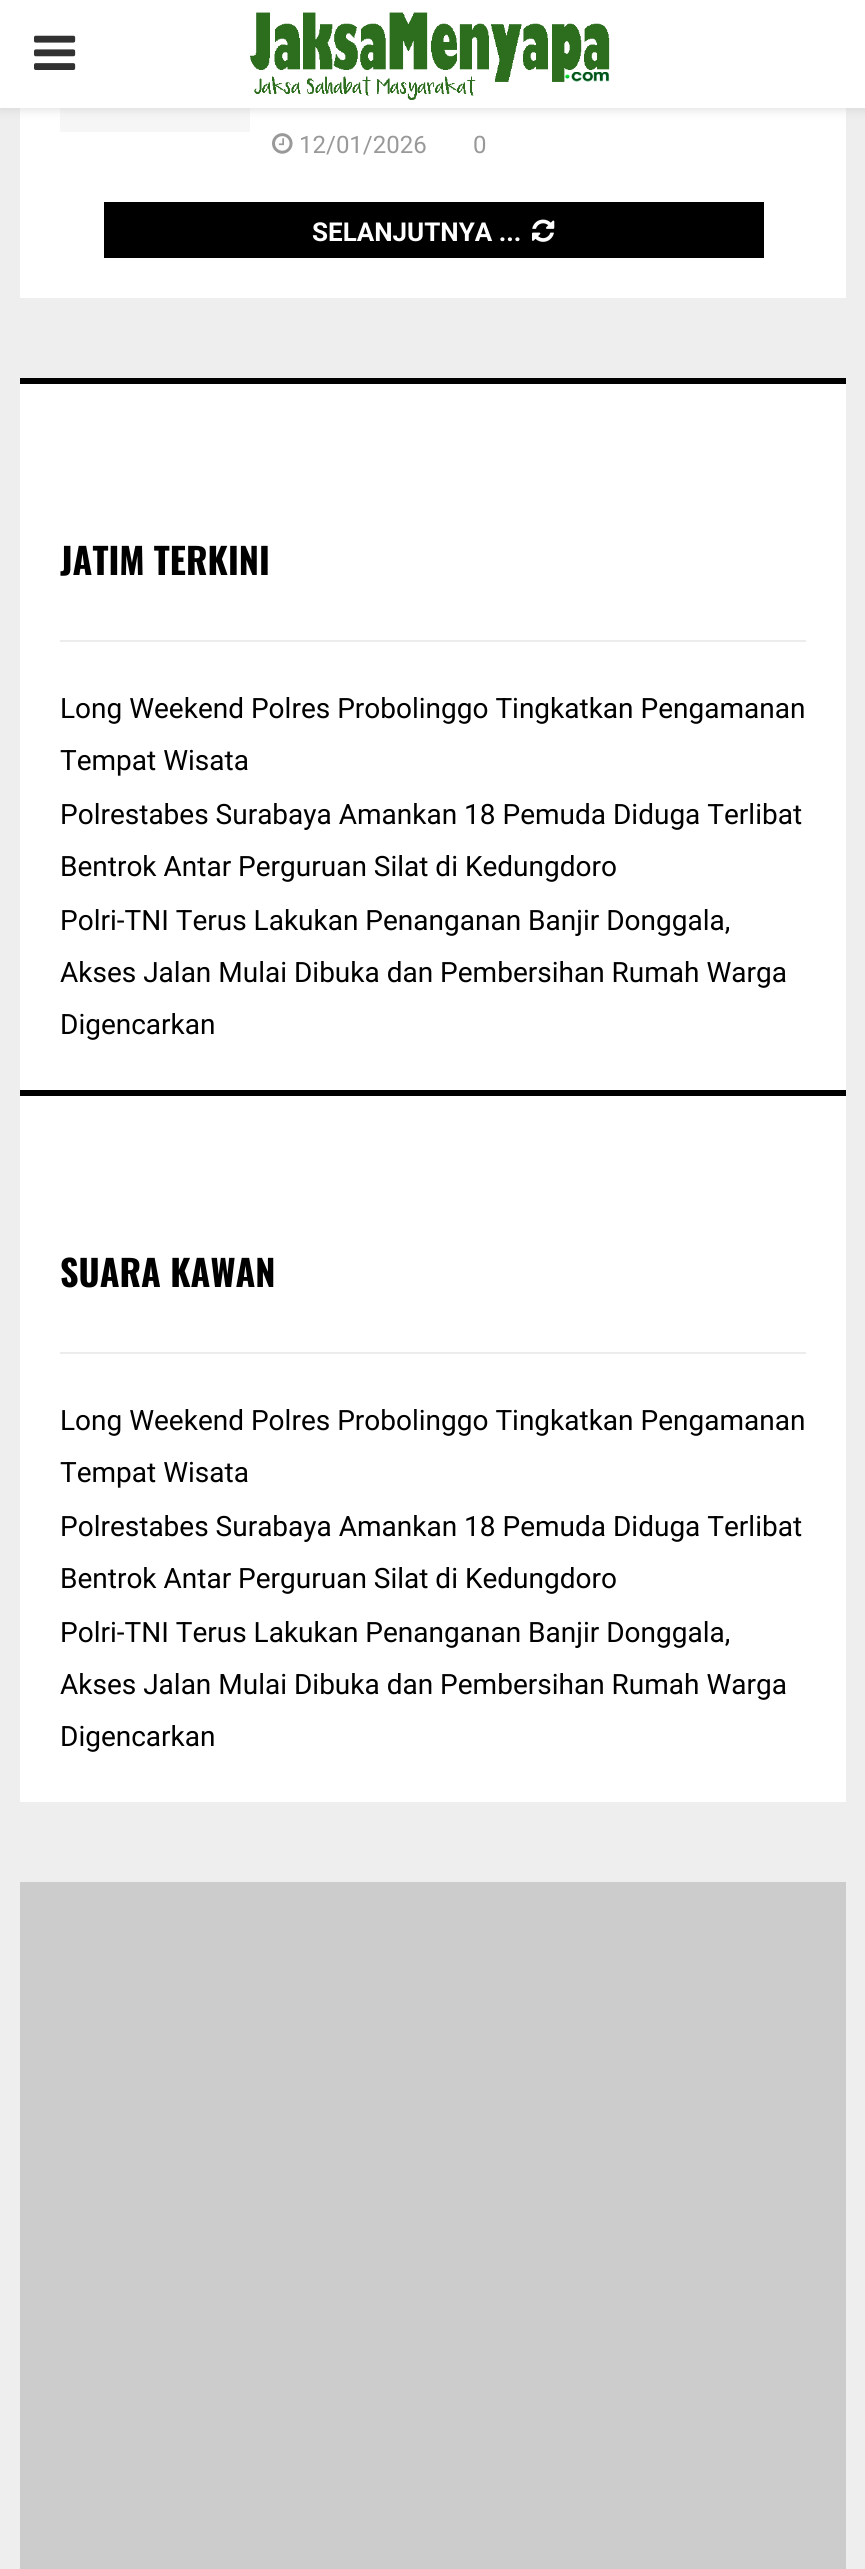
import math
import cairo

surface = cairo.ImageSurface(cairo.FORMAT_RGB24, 865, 2569)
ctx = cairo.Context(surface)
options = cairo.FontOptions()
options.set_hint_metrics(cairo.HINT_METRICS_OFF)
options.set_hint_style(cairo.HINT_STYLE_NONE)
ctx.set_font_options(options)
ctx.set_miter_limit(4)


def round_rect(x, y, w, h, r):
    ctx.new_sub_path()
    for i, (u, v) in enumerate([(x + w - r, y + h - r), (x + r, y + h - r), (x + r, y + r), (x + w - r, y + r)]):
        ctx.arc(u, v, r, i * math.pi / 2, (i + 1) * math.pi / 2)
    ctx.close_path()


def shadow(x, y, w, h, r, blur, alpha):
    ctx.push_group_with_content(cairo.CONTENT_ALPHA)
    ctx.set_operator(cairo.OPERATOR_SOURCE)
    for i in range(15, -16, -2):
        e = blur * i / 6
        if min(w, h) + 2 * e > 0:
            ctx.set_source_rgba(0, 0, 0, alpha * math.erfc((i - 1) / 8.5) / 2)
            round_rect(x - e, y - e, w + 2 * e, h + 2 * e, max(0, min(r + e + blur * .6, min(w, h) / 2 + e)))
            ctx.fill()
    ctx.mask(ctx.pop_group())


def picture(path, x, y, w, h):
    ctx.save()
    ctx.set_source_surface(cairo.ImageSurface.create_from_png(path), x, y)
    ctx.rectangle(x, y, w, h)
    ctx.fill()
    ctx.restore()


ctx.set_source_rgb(0.933, 0.933, 0.933)
ctx.paint()
ctx.set_source_rgb(1, 1, 1)
ctx.rectangle(20, 108, 826, 190)
ctx.fill()
ctx.set_source_rgb(0.961, 0.961, 0.961)
ctx.rectangle(60, 108, 190, 24)
ctx.fill()
ctx.set_source_rgb(0.745, 0.745, 0.745)
shadow(0, 2, 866, 108, 0, 5, 0.46)
ctx.set_source_rgb(1, 1, 1)
ctx.rectangle(0, 0, 865, 108)
ctx.fill()
picture("img1.png", 34, 35, 42, 35)
picture("img2.png", 250, 12, 360, 88)
picture("img3.png", 272, 133, 21, 21)
ctx.select_font_face("Roboto")
ctx.set_font_size(24)
ctx.set_source_rgb(0.6, 0.6, 0.6)
ctx.move_to(299, 153)
ctx.show_text("12/01/2026")
ctx.move_to(473, 153)
ctx.show_text("0")
ctx.set_source_rgb(0, 0, 0)
ctx.rectangle(104, 202, 660, 56)
ctx.fill()
ctx.select_font_face("Roboto", cairo.FONT_SLANT_NORMAL, cairo.FONT_WEIGHT_BOLD)
ctx.set_font_size(26)
ctx.set_source_rgb(1, 1, 1)
ctx.move_to(312, 241)
ctx.show_text("SELANJUTNYA ...")
picture("img4.png", 532, 219, 23, 23)
ctx.rectangle(20, 384, 826, 706)
ctx.fill()
ctx.set_source_rgb(0.925, 0.925, 0.925)
ctx.rectangle(60, 640, 746, 2)
ctx.fill()
ctx.set_source_rgb(0, 0, 0)
ctx.rectangle(20, 378, 826, 6)
ctx.fill()
ctx.select_font_face("Oswald", cairo.FONT_SLANT_NORMAL, cairo.FONT_WEIGHT_BOLD)
ctx.set_font_size(36)
ctx.move_to(60, 575)
ctx.show_text("JATIM TERKINI")
ctx.select_font_face("Roboto")
ctx.set_font_size(28)
ctx.move_to(60, 718)
ctx.show_text("Long Weekend Polres Probolinggo Tingkatkan Pengamanan")
ctx.move_to(60, 770)
ctx.show_text("Tempat Wisata")
ctx.move_to(60, 824)
ctx.show_text("Polrestabes Surabaya Amankan 18 Pemuda Diduga Terlibat")
ctx.move_to(60, 876)
ctx.show_text("Bentrok Antar Perguruan Silat di Kedungdoro")
ctx.move_to(60, 930)
ctx.show_text("Polri-TNI Terus Lakukan Penanganan Banjir Donggala,")
ctx.move_to(60, 982)
ctx.show_text("Akses Jalan Mulai Dibuka dan Pembersihan Rumah Warga")
ctx.move_to(60, 1034)
ctx.show_text("Digencarkan")
ctx.set_source_rgb(1, 1, 1)
ctx.rectangle(20, 1096, 826, 706)
ctx.fill()
ctx.set_source_rgb(0.925, 0.925, 0.925)
ctx.rectangle(60, 1352, 746, 2)
ctx.fill()
ctx.set_source_rgb(0, 0, 0)
ctx.rectangle(20, 1090, 826, 6)
ctx.fill()
ctx.select_font_face("Oswald", cairo.FONT_SLANT_NORMAL, cairo.FONT_WEIGHT_BOLD)
ctx.set_font_size(36)
ctx.move_to(60, 1287)
ctx.show_text("SUARA KAWAN")
ctx.select_font_face("Roboto")
ctx.set_font_size(28)
ctx.move_to(60, 1430)
ctx.show_text("Long Weekend Polres Probolinggo Tingkatkan Pengamanan")
ctx.move_to(60, 1482)
ctx.show_text("Tempat Wisata")
ctx.move_to(60, 1536)
ctx.show_text("Polrestabes Surabaya Amankan 18 Pemuda Diduga Terlibat")
ctx.move_to(60, 1588)
ctx.show_text("Bentrok Antar Perguruan Silat di Kedungdoro")
ctx.move_to(60, 1642)
ctx.show_text("Polri-TNI Terus Lakukan Penanganan Banjir Donggala,")
ctx.move_to(60, 1694)
ctx.show_text("Akses Jalan Mulai Dibuka dan Pembersihan Rumah Warga")
ctx.move_to(60, 1746)
ctx.show_text("Digencarkan")
ctx.set_source_rgb(0.8, 0.8, 0.8)
ctx.rectangle(20, 1882, 826, 687)
ctx.fill()
surface.write_to_png("page.png")
